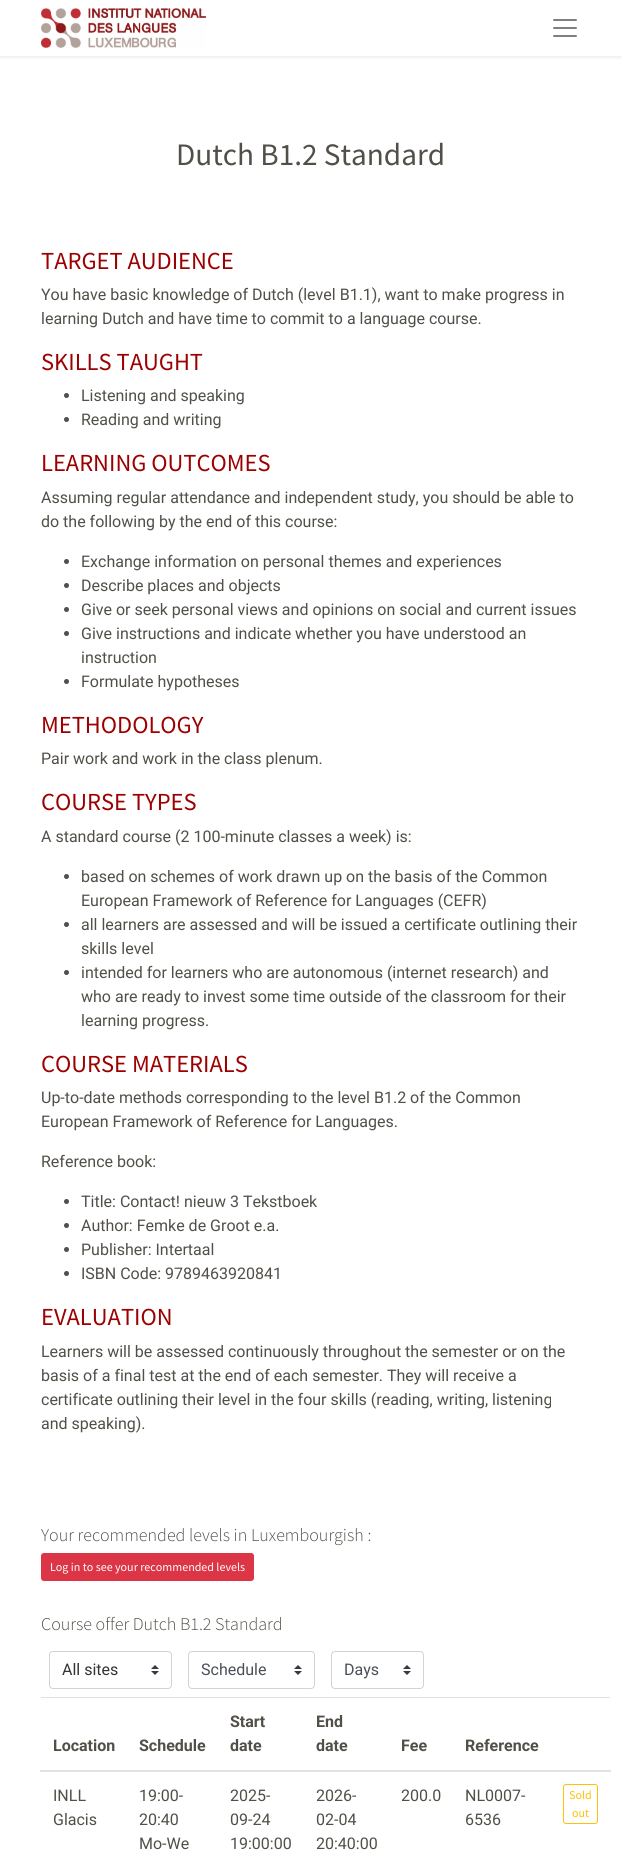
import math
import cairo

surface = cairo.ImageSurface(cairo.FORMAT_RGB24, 622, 1870)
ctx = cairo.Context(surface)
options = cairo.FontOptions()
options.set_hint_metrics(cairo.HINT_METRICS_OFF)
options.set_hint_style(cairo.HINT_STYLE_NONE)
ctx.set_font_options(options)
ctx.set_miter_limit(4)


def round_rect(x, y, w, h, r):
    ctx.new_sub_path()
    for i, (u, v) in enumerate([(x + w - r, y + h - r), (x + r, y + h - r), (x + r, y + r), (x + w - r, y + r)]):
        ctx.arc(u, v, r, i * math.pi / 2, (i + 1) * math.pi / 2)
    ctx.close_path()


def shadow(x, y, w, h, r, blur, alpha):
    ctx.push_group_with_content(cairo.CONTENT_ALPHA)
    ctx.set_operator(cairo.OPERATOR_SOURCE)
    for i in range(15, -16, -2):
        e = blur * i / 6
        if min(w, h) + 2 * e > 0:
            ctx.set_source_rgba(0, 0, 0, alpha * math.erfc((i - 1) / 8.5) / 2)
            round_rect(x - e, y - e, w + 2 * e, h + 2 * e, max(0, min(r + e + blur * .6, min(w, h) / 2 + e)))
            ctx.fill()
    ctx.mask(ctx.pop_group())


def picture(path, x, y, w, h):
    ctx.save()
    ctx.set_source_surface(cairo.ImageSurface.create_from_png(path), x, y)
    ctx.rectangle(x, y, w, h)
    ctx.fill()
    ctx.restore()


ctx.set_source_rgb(1, 1, 1)
ctx.paint()
ctx.save()
ctx.rectangle(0, 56, 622, 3)
ctx.clip()
ctx.set_source_rgb(0, 0, 0)
shadow(0, 2, 622, 56, 0, 2, 0.07)
ctx.restore()
picture("img1.png", 41, 8, 165, 40)
picture("img2.png", 553, 19, 24, 18)
ctx.select_font_face("Source Sans Pro")
ctx.set_font_size(31.25)
ctx.set_source_rgb(0.318, 0.31, 0.278)
ctx.move_to(176, 165)
ctx.show_text("Dutch B1.2 Standard")
ctx.set_font_size(24.5)
ctx.set_source_rgb(0.612, 0, 0)
ctx.move_to(41, 269)
ctx.show_text("TARGET AUDIENCE")
ctx.select_font_face("Roboto")
ctx.set_font_size(16)
ctx.set_source_rgb(0.318, 0.31, 0.278)
ctx.move_to(41, 300)
ctx.show_text("You have basic knowledge of Dutch (level B1.1), want to make progress in")
ctx.move_to(41, 324)
ctx.show_text("learning Dutch and have time to commit to a language course.")
ctx.select_font_face("Source Sans Pro")
ctx.set_font_size(24.5)
ctx.set_source_rgb(0.612, 0, 0)
ctx.move_to(41, 370)
ctx.show_text("SKILLS TAUGHT")
ctx.set_source_rgb(0.318, 0.31, 0.278)
ctx.new_path()
ctx.arc(66.5, 395.5, 2.5, 0, 2 * math.pi)
ctx.fill()
ctx.select_font_face("Roboto")
ctx.set_font_size(16)
ctx.move_to(81, 401)
ctx.show_text("Listening and speaking")
ctx.new_path()
ctx.arc(66.5, 419.5, 2.5, 0, 2 * math.pi)
ctx.fill()
ctx.move_to(81, 425)
ctx.show_text("Reading and writing")
ctx.select_font_face("Source Sans Pro")
ctx.set_font_size(24.5)
ctx.set_source_rgb(0.612, 0, 0)
ctx.move_to(41, 471)
ctx.show_text("LEARNING OUTCOMES")
ctx.select_font_face("Roboto")
ctx.set_font_size(16)
ctx.set_source_rgb(0.318, 0.31, 0.278)
ctx.move_to(41, 503)
ctx.show_text("Assuming regular attendance and independent study, you should be able to")
ctx.move_to(41, 527)
ctx.show_text("do the following by the end of this course:")
ctx.new_path()
ctx.arc(66.5, 561.5, 2.5, 0, 2 * math.pi)
ctx.fill()
ctx.move_to(81, 567)
ctx.show_text("Exchange information on personal themes and experiences")
ctx.new_path()
ctx.arc(66.5, 585.5, 2.5, 0, 2 * math.pi)
ctx.fill()
ctx.move_to(81, 591)
ctx.show_text("Describe places and objects")
ctx.new_path()
ctx.arc(66.5, 609.5, 2.5, 0, 2 * math.pi)
ctx.fill()
ctx.move_to(81, 615)
ctx.show_text("Give or seek personal views and opinions on social and current issues")
ctx.new_path()
ctx.arc(66.5, 633.5, 2.5, 0, 2 * math.pi)
ctx.fill()
ctx.move_to(81, 639)
ctx.show_text("Give instructions and indicate whether you have understood an")
ctx.move_to(81, 663)
ctx.show_text("instruction")
ctx.new_path()
ctx.arc(66.5, 681.5, 2.5, 0, 2 * math.pi)
ctx.fill()
ctx.move_to(81, 687)
ctx.show_text("Formulate hypotheses")
ctx.select_font_face("Source Sans Pro")
ctx.set_font_size(24.5)
ctx.set_source_rgb(0.612, 0, 0)
ctx.move_to(41, 733)
ctx.show_text("METHODOLOGY")
ctx.select_font_face("Roboto")
ctx.set_font_size(16)
ctx.set_source_rgb(0.318, 0.31, 0.278)
ctx.move_to(41, 764)
ctx.show_text("Pair work and work in the class plenum.")
ctx.select_font_face("Source Sans Pro")
ctx.set_font_size(24.5)
ctx.set_source_rgb(0.612, 0, 0)
ctx.move_to(41, 810)
ctx.show_text("COURSE TYPES")
ctx.select_font_face("Roboto")
ctx.set_font_size(16)
ctx.set_source_rgb(0.318, 0.31, 0.278)
ctx.move_to(41, 842)
ctx.show_text("A standard course (2 100-minute classes a week) is:")
ctx.new_path()
ctx.arc(66.5, 876.5, 2.5, 0, 2 * math.pi)
ctx.fill()
ctx.move_to(81, 882)
ctx.show_text("based on schemes of work drawn up on the basis of the Common")
ctx.move_to(81, 906)
ctx.show_text("European Framework of Reference for Languages (CEFR)")
ctx.new_path()
ctx.arc(66.5, 924.5, 2.5, 0, 2 * math.pi)
ctx.fill()
ctx.move_to(81, 930)
ctx.show_text("all learners are assessed and will be issued a certificate outlining their")
ctx.move_to(81, 954)
ctx.show_text("skills level")
ctx.new_path()
ctx.arc(66.5, 972.5, 2.5, 0, 2 * math.pi)
ctx.fill()
ctx.move_to(81, 978)
ctx.show_text("intended for learners who are autonomous (internet research) and")
ctx.move_to(81, 1002)
ctx.show_text("who are ready to invest some time outside of the classroom for their")
ctx.move_to(81, 1026)
ctx.show_text("learning progress.")
ctx.select_font_face("Source Sans Pro")
ctx.set_font_size(24.5)
ctx.set_source_rgb(0.612, 0, 0)
ctx.move_to(41, 1072)
ctx.show_text("COURSE MATERIALS")
ctx.select_font_face("Roboto")
ctx.set_font_size(16)
ctx.set_source_rgb(0.318, 0.31, 0.278)
ctx.move_to(41, 1103)
ctx.show_text("Up-to-date methods corresponding to the level B1.2 of the Common")
ctx.move_to(41, 1127)
ctx.show_text("European Framework of Reference for Languages.")
ctx.move_to(41, 1167)
ctx.show_text("Reference book:")
ctx.new_path()
ctx.arc(66.5, 1201.5, 2.5, 0, 2 * math.pi)
ctx.fill()
ctx.move_to(81, 1207)
ctx.show_text("Title: Contact! nieuw 3 Tekstboek")
ctx.new_path()
ctx.arc(66.5, 1225.5, 2.5, 0, 2 * math.pi)
ctx.fill()
ctx.move_to(81, 1231)
ctx.show_text("Author: Femke de Groot e.a.")
ctx.new_path()
ctx.arc(66.5, 1249.5, 2.5, 0, 2 * math.pi)
ctx.fill()
ctx.move_to(81, 1255)
ctx.show_text("Publisher: Intertaal")
ctx.new_path()
ctx.arc(66.5, 1273.5, 2.5, 0, 2 * math.pi)
ctx.fill()
ctx.move_to(81, 1279)
ctx.show_text("ISBN Code: 9789463920841")
ctx.select_font_face("Source Sans Pro")
ctx.set_font_size(24.5)
ctx.set_source_rgb(0.612, 0, 0)
ctx.move_to(41, 1325)
ctx.show_text("EVALUATION")
ctx.select_font_face("Roboto")
ctx.set_font_size(16)
ctx.set_source_rgb(0.318, 0.31, 0.278)
ctx.move_to(41, 1357)
ctx.show_text("Learners will be assessed continuously throughout the semester or on the")
ctx.move_to(41, 1381)
ctx.show_text("basis of a final test at the end of each semester. They will receive a")
ctx.move_to(41, 1405)
ctx.show_text("certificate outlining their level in the four skills (reading, writing, listening")
ctx.move_to(41, 1429)
ctx.show_text("and speaking).")
ctx.select_font_face("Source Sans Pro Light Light")
ctx.set_font_size(18)
ctx.move_to(41, 1541)
ctx.show_text("Your recommended levels in Luxembourgish :")
ctx.set_source_rgb(0.863, 0.208, 0.271)
round_rect(41.5, 1553.5, 212, 27, 2.5)
ctx.fill_preserve()
ctx.set_line_width(1)
ctx.stroke()
ctx.select_font_face("Source Sans Pro")
ctx.set_font_size(12)
ctx.set_source_rgb(1, 1, 1)
ctx.move_to(50, 1571)
ctx.show_text("Log in to see your recommended levels")
ctx.select_font_face("Source Sans Pro Light Light")
ctx.set_font_size(18)
ctx.set_source_rgb(0.318, 0.31, 0.278)
ctx.move_to(41, 1630)
ctx.show_text("Course offer Dutch B1.2 Standard")
picture("img3.png", 151, 1665, 8, 10)
round_rect(49.5, 1651.5, 122, 37, 3.5)
ctx.set_source_rgb(0.808, 0.831, 0.855)
ctx.stroke()
ctx.select_font_face("Roboto")
ctx.set_font_size(16)
ctx.set_source_rgb(0.2, 0.2, 0.2)
ctx.move_to(62, 1675)
ctx.show_text("All sites")
picture("img3.png", 294, 1665, 8, 10)
round_rect(188.5, 1651.5, 126, 37, 3.5)
ctx.set_source_rgb(0.808, 0.831, 0.855)
ctx.stroke()
ctx.set_source_rgb(0.286, 0.314, 0.341)
ctx.move_to(201, 1675)
ctx.show_text("Schedule")
picture("img3.png", 403, 1665, 8, 10)
round_rect(331.5, 1651.5, 92, 37, 3.5)
ctx.set_source_rgb(0.808, 0.831, 0.855)
ctx.stroke()
ctx.set_source_rgb(0.286, 0.314, 0.341)
ctx.move_to(344, 1675)
ctx.show_text("Days")
ctx.set_source_rgb(0.871, 0.886, 0.902)
ctx.rectangle(41, 1697, 569, 1)
ctx.fill()
ctx.rectangle(40, 1770, 571, 2)
ctx.fill()
ctx.select_font_face("Roboto", cairo.FONT_SLANT_NORMAL, cairo.FONT_WEIGHT_BOLD)
ctx.set_source_rgb(0.318, 0.31, 0.278)
ctx.move_to(53, 1751)
ctx.show_text("Location")
ctx.move_to(139, 1751)
ctx.show_text("Schedule")
ctx.move_to(230, 1727)
ctx.show_text("Start")
ctx.move_to(230, 1751)
ctx.show_text("date")
ctx.move_to(316, 1727)
ctx.show_text("End")
ctx.move_to(316, 1751)
ctx.show_text("date")
ctx.move_to(401, 1751)
ctx.show_text("Fee")
ctx.move_to(465, 1751)
ctx.show_text("Reference")
ctx.select_font_face("Roboto")
ctx.move_to(53, 1801)
ctx.show_text("INLL")
ctx.move_to(53, 1825)
ctx.show_text("Glacis")
ctx.move_to(139, 1801)
ctx.show_text("19:00-")
ctx.move_to(139, 1825)
ctx.show_text("20:40")
ctx.move_to(139, 1849)
ctx.show_text("Mo-We")
ctx.move_to(230, 1801)
ctx.show_text("2025-")
ctx.move_to(230, 1825)
ctx.show_text("09-24")
ctx.move_to(230, 1849)
ctx.show_text("19:00:00")
ctx.move_to(316, 1801)
ctx.show_text("2026-")
ctx.move_to(316, 1825)
ctx.show_text("02-04")
ctx.move_to(316, 1849)
ctx.show_text("20:40:00")
ctx.move_to(401, 1801)
ctx.show_text("200.0")
ctx.move_to(465, 1801)
ctx.show_text("NL0007-")
ctx.move_to(465, 1825)
ctx.show_text("6536")
round_rect(563.5, 1784.5, 34, 39, 2.5)
ctx.set_source_rgb(1, 0.757, 0.027)
ctx.stroke()
ctx.select_font_face("Source Sans Pro")
ctx.set_font_size(12)
ctx.move_to(569, 1799)
ctx.show_text("Sold")
ctx.move_to(572, 1817)
ctx.show_text("out")
surface.write_to_png("page.png")
